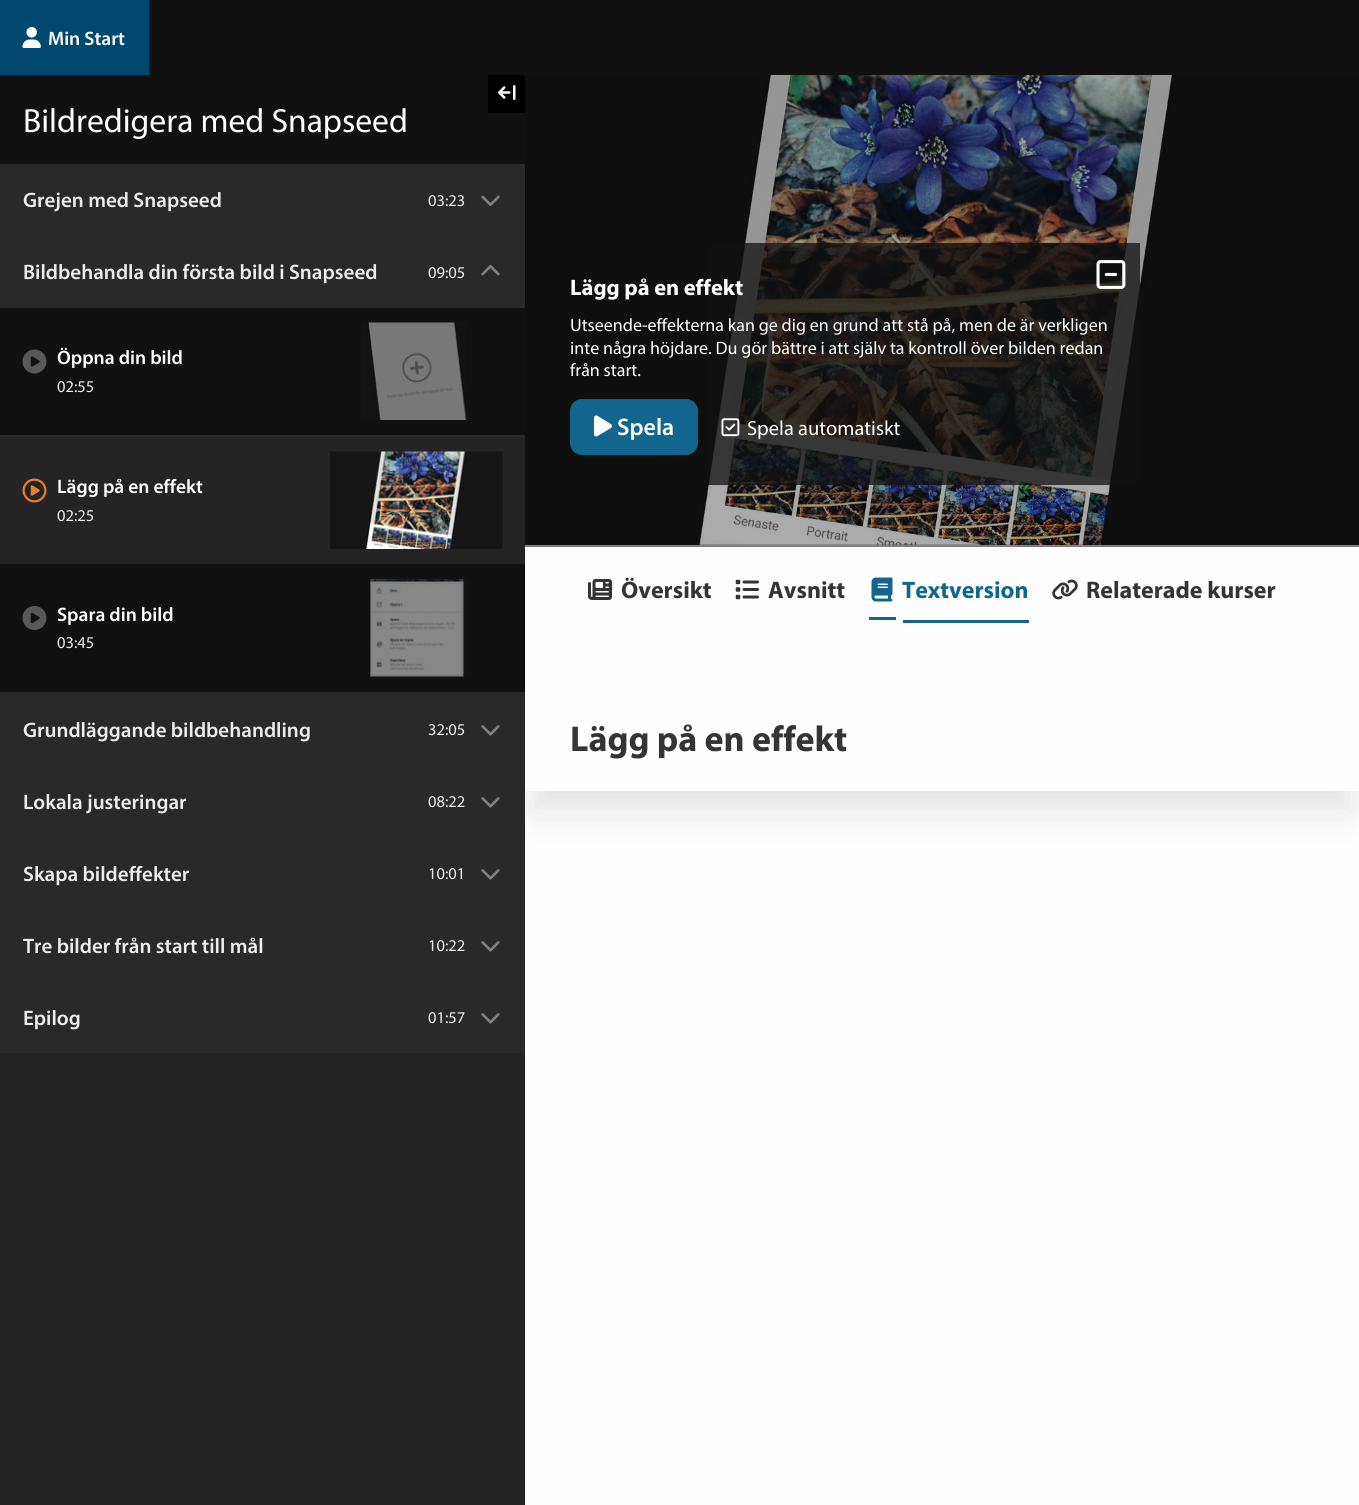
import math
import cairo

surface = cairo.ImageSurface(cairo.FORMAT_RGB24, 1359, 1505)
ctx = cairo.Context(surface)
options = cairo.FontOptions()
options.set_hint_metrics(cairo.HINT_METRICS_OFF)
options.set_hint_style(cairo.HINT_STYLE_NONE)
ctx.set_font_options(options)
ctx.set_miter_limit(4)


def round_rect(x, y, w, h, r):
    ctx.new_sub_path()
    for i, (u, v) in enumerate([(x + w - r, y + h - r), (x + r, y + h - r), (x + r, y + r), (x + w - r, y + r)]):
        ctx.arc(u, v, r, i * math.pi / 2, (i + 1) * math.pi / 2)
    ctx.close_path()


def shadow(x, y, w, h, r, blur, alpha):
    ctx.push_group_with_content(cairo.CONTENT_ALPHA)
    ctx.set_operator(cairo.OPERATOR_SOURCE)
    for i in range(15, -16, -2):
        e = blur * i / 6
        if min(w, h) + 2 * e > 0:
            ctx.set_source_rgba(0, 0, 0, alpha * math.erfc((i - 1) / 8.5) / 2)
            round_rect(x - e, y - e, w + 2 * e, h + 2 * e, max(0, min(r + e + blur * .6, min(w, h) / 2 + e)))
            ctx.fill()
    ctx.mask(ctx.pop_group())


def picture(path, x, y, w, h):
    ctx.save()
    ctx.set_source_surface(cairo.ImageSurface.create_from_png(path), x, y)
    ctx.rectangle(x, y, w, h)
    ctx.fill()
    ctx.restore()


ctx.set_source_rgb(0.996, 0.996, 0.996)
ctx.paint()
ctx.set_source_rgb(0.067, 0.067, 0.067)
ctx.rectangle(149, 0, 1210, 75)
ctx.fill()
ctx.set_source_rgb(0, 0.282, 0.435)
ctx.rectangle(0, 0, 149, 75)
ctx.fill()
picture("img1.png", 22, 27, 19, 21)
ctx.select_font_face("Myriad SemiBold")
ctx.set_font_size(19.5)
ctx.set_source_rgb(0.996, 0.996, 0.996)
ctx.move_to(48, 45)
ctx.show_text("Min Start")
ctx.save()
ctx.set_fill_rule(cairo.FILL_RULE_EVEN_ODD)
ctx.new_path()
ctx.move_to(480, 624)
ctx.line_to(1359, 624)
ctx.line_to(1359, 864)
ctx.line_to(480, 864)
ctx.close_path()
ctx.move_to(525, 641)
ctx.line_to(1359, 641)
ctx.line_to(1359, 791)
ctx.line_to(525, 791)
ctx.close_path()
ctx.clip()
ctx.set_source_rgb(0, 0, 0)
shadow(531, 675, 822, 138, 0, 16.5, 0.1)
ctx.restore()
ctx.set_source_rgb(0.141, 0.141, 0.141)
ctx.rectangle(0, 437, 525, 1068)
ctx.fill()
ctx.set_source_rgb(0.067, 0.067, 0.067)
ctx.rectangle(0, 75, 525, 89)
ctx.fill()
ctx.set_source_rgb(0, 0, 0)
ctx.rectangle(488, 75, 37, 38)
ctx.fill()
picture("img2.png", 498, 85, 18, 15)
ctx.select_font_face("Myriad")
ctx.set_font_size(33.6)
ctx.set_source_rgb(0.996, 0.996, 0.996)
ctx.move_to(23, 132)
ctx.show_text("Bildredigera med Snapseed")
ctx.set_source_rgb(0.161, 0.161, 0.161)
ctx.rectangle(0, 164, 525, 144)
ctx.fill()
ctx.select_font_face("Myriad SemiBold")
ctx.set_font_size(21)
ctx.set_source_rgb(0.925, 0.925, 0.925)
ctx.move_to(23, 207)
ctx.show_text("Grejen med Snapseed")
ctx.select_font_face("Myriad")
ctx.set_font_size(16.5)
ctx.move_to(428, 206)
ctx.show_text("03:23")
picture("img3.png", 481, 195, 19, 11)
ctx.select_font_face("Myriad SemiBold")
ctx.set_font_size(21)
ctx.move_to(23, 279)
ctx.show_text("Bildbehandla din första bild i Snapseed")
ctx.select_font_face("Myriad")
ctx.set_font_size(16.5)
ctx.move_to(428, 278)
ctx.show_text("09:05")
picture("img4.png", 481, 265, 19, 11)
ctx.set_source_rgb(0.067, 0.067, 0.067)
ctx.rectangle(0, 308, 525, 127)
ctx.fill()
ctx.set_source_rgb(0.161, 0.161, 0.161)
ctx.rectangle(0, 435, 525, 2)
ctx.fill()
picture("img5.png", 22, 349, 25, 25)
ctx.select_font_face("Myriad SemiBold")
ctx.set_font_size(19.5)
ctx.set_source_rgb(0.996, 0.996, 0.996)
ctx.move_to(57, 364)
ctx.show_text("Öppna din bild")
ctx.select_font_face("Myriad")
ctx.set_font_size(16.5)
ctx.set_source_rgb(0.925, 0.925, 0.925)
ctx.move_to(57, 392)
ctx.show_text("02:55")
picture("img6.png", 361, 322, 106, 98)
picture("img7.png", 22, 478, 25, 25)
ctx.select_font_face("Myriad SemiBold")
ctx.set_font_size(19.5)
ctx.set_source_rgb(0.996, 0.996, 0.996)
ctx.move_to(57, 493)
ctx.show_text("Lägg på en effekt")
ctx.select_font_face("Myriad")
ctx.set_font_size(16.5)
ctx.set_source_rgb(0.925, 0.925, 0.925)
ctx.move_to(57, 521)
ctx.show_text("02:25")
picture("img8.png", 330, 451, 173, 98)
ctx.set_source_rgb(0.067, 0.067, 0.067)
ctx.rectangle(0, 564, 525, 128)
ctx.fill()
picture("img9.png", 22, 606, 25, 24)
ctx.select_font_face("Myriad SemiBold")
ctx.set_font_size(19.5)
ctx.set_source_rgb(0.996, 0.996, 0.996)
ctx.move_to(57, 621)
ctx.show_text("Spara din bild")
ctx.select_font_face("Myriad")
ctx.set_font_size(16.5)
ctx.set_source_rgb(0.925, 0.925, 0.925)
ctx.move_to(57, 648)
ctx.show_text("03:45")
picture("img10.png", 369, 579, 101, 98)
ctx.set_source_rgb(0.161, 0.161, 0.161)
ctx.rectangle(0, 692, 525, 361)
ctx.fill()
ctx.select_font_face("Myriad SemiBold")
ctx.set_font_size(21)
ctx.set_source_rgb(0.925, 0.925, 0.925)
ctx.move_to(23, 737)
ctx.show_text("Grundläggande bildbehandling")
ctx.select_font_face("Myriad")
ctx.set_font_size(16.5)
ctx.move_to(428, 735)
ctx.show_text("32:05")
picture("img11.png", 481, 725, 19, 11)
ctx.select_font_face("Myriad SemiBold")
ctx.set_font_size(21)
ctx.move_to(23, 809)
ctx.show_text("Lokala justeringar")
ctx.select_font_face("Myriad")
ctx.set_font_size(16.5)
ctx.move_to(428, 807)
ctx.show_text("08:22")
picture("img11.png", 481, 797, 19, 11)
ctx.select_font_face("Myriad SemiBold")
ctx.set_font_size(21)
ctx.move_to(23, 881)
ctx.show_text("Skapa bildeffekter")
ctx.select_font_face("Myriad")
ctx.set_font_size(16.5)
ctx.move_to(428, 879)
ctx.show_text("10:01")
picture("img11.png", 481, 869, 19, 11)
ctx.select_font_face("Myriad SemiBold")
ctx.set_font_size(21)
ctx.move_to(23, 953)
ctx.show_text("Tre bilder från start till mål")
ctx.select_font_face("Myriad")
ctx.set_font_size(16.5)
ctx.move_to(428, 951)
ctx.show_text("10:22")
picture("img11.png", 481, 941, 19, 11)
ctx.select_font_face("Myriad SemiBold")
ctx.set_font_size(21)
ctx.move_to(23, 1025)
ctx.show_text("Epilog")
ctx.select_font_face("Myriad")
ctx.set_font_size(16.5)
ctx.move_to(428, 1023)
ctx.show_text("01:57")
picture("img11.png", 481, 1013, 19, 11)
ctx.set_source_rgb(0.498, 0.498, 0.498)
ctx.rectangle(525, 545, 834, 2)
ctx.fill()
ctx.set_source_rgb(0.071, 0.071, 0.071)
ctx.rectangle(525, 544, 834, 1)
ctx.fill()
picture("img12.png", 525, 75, 834, 470)
picture("img13.png", 699, 75, 474, 470)
picture("img14.png", 699, 544, 403, 1)
ctx.set_source_rgba(0.067, 0.067, 0.067, 0.75)
ctx.rectangle(707, 243, 433, 242)
ctx.fill()
picture("img15.png", 1096, 260, 30, 29)
ctx.select_font_face("Myriad", cairo.FONT_SLANT_NORMAL, cairo.FONT_WEIGHT_BOLD)
ctx.set_font_size(22.5)
ctx.set_source_rgb(0.996, 0.996, 0.996)
ctx.move_to(570, 295)
ctx.show_text("Lägg på en effekt")
ctx.select_font_face("Myriad")
ctx.set_font_size(18)
ctx.move_to(570, 331)
ctx.show_text("Utseende-effekterna kan ge dig en grund att stå på, men de är verkligen")
ctx.move_to(570, 354)
ctx.show_text("inte några höjdare. Du gör bättre i att själv ta kontroll över bilden redan")
ctx.move_to(570, 376)
ctx.show_text("från start.")
ctx.set_source_rgb(0.071, 0.4, 0.553)
round_rect(570, 399, 128, 56, 12)
ctx.fill()
picture("img16.png", 594, 415, 18, 22)
ctx.select_font_face("Myriad SemiBold")
ctx.set_font_size(24)
ctx.set_source_rgb(0.996, 0.996, 0.996)
ctx.move_to(617, 435)
ctx.show_text("Spela")
picture("img17.png", 721, 418, 19, 19)
ctx.select_font_face("Myriad")
ctx.set_font_size(20.5)
ctx.move_to(747, 435)
ctx.show_text("Spela automatiskt")
picture("img18.png", 588, 579, 24, 21)
ctx.select_font_face("Myriad", cairo.FONT_SLANT_NORMAL, cairo.FONT_WEIGHT_BOLD)
ctx.set_font_size(24)
ctx.set_source_rgb(0.204, 0.204, 0.204)
ctx.move_to(621, 598)
ctx.show_text("Översikt")
picture("img19.png", 735, 579, 24, 21)
ctx.move_to(768, 598)
ctx.show_text("Avsnitt")
ctx.set_source_rgb(0.071, 0.4, 0.553)
ctx.rectangle(869, 617, 27, 3)
ctx.fill()
ctx.rectangle(903, 620, 126, 3)
ctx.fill()
picture("img20.png", 871, 577, 22, 25)
ctx.move_to(902, 598)
ctx.show_text("Textversion")
picture("img21.png", 1052, 579, 26, 21)
ctx.set_source_rgb(0.204, 0.204, 0.204)
ctx.move_to(1086, 598)
ctx.show_text("Relaterade kurser")
ctx.set_font_size(36)
ctx.move_to(570, 751)
ctx.show_text("Lägg på en effekt")
surface.write_to_png("page.png")
